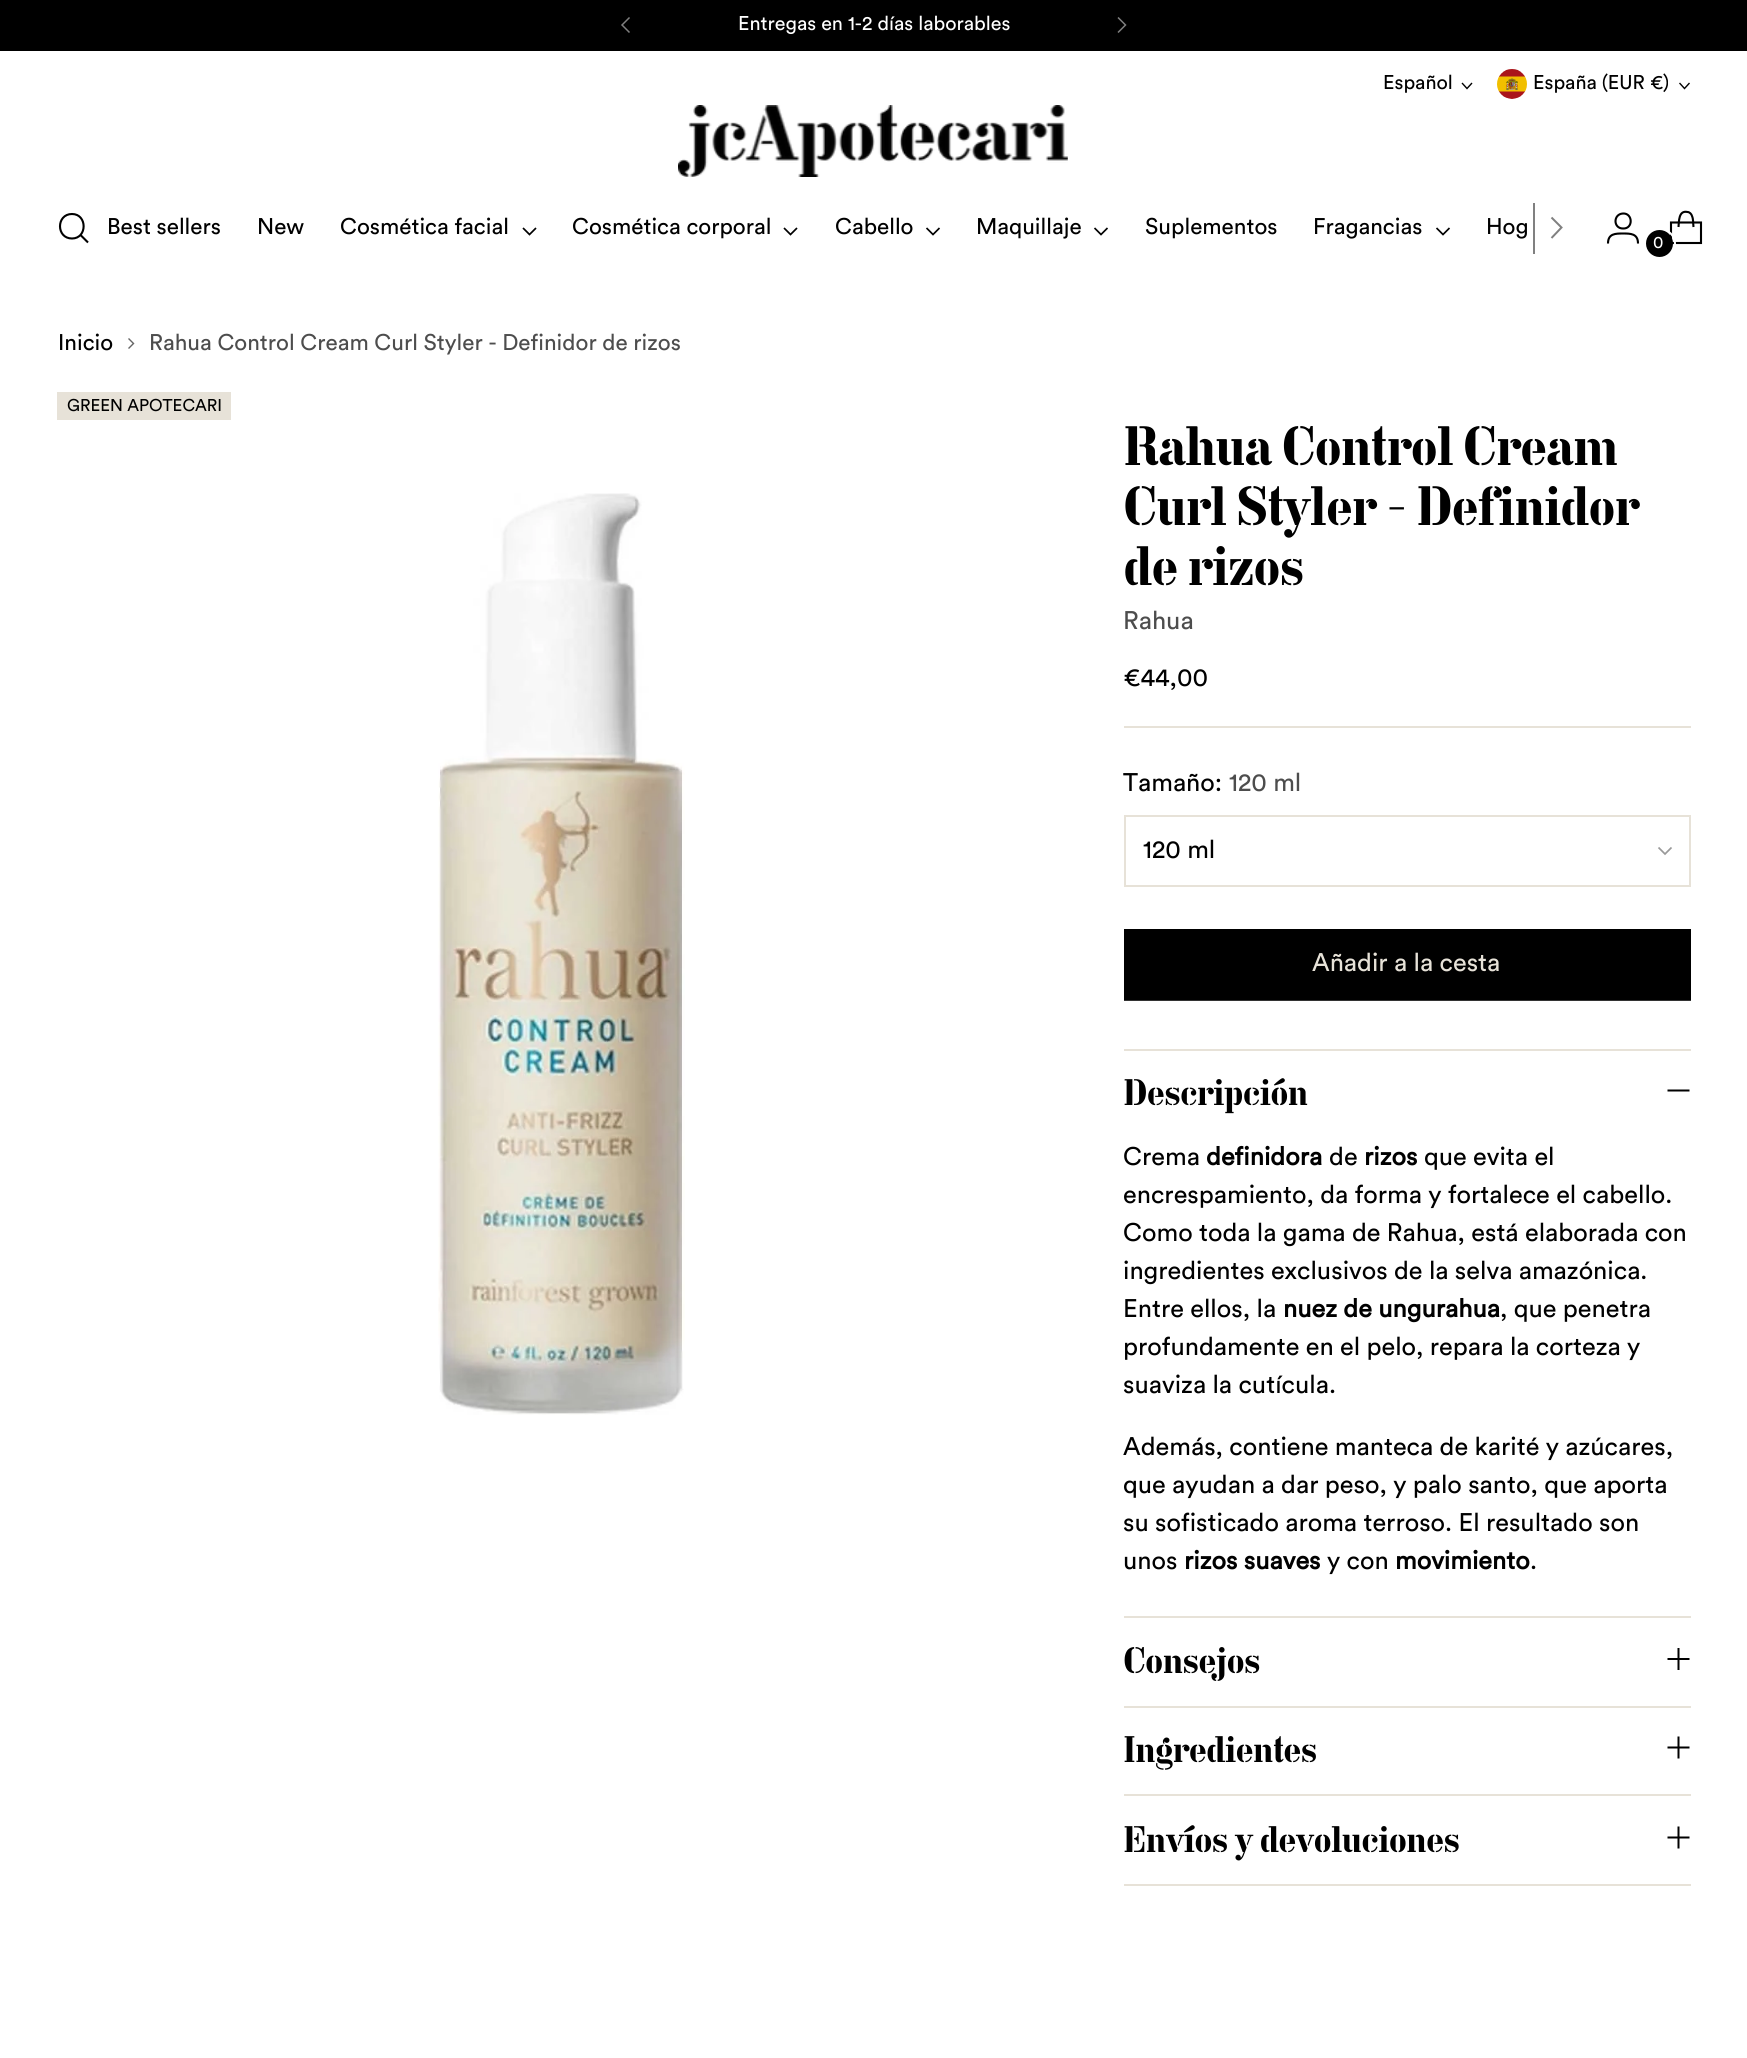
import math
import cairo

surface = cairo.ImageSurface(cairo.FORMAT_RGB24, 1747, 2058)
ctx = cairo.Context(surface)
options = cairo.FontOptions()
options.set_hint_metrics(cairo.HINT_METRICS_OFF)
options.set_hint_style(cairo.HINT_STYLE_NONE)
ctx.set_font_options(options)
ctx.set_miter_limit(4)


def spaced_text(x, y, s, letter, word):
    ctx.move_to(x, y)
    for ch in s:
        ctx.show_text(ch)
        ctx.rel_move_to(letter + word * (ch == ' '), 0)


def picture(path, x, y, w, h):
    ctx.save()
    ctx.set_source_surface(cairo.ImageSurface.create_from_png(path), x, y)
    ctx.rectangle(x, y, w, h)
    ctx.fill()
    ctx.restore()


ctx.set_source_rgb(1, 1, 1)
ctx.paint()
ctx.set_source_rgb(0, 0, 0)
ctx.rectangle(0, 0, 1747, 51)
ctx.fill()
ctx.select_font_face("Circular")
ctx.set_font_size(19.75)
ctx.set_source_rgb(1, 1, 1)
ctx.move_to(738, 30)
ctx.show_text("Entregas en 1-2 días laborables")
ctx.new_path()
ctx.move_to(629.5, 17.5)
ctx.line_to(622, 25)
ctx.line_to(629.5, 32.5)
ctx.set_source_rgb(0.502, 0.502, 0.502)
ctx.set_line_width(1.5)
ctx.stroke()
ctx.new_path()
ctx.move_to(1118, 32.5)
ctx.line_to(1125.5, 25)
ctx.line_to(1118, 17.5)
ctx.stroke()
ctx.set_source_rgb(0, 0, 0)
ctx.move_to(1383, 89)
ctx.show_text("Español")
ctx.new_path()
ctx.move_to(1462, 83)
ctx.line_to(1467, 88.5)
ctx.line_to(1472, 83)
ctx.set_line_width(1.4)
ctx.stroke()
picture("img1.png", 1497, 69, 30, 30)
ctx.move_to(1533, 89)
ctx.show_text("España (EUR €)")
ctx.new_path()
ctx.move_to(1679.5, 83)
ctx.line_to(1684.5, 88.5)
ctx.line_to(1689.5, 83)
ctx.stroke()
picture("img2.png", 678, 105, 390, 72)
ctx.new_path()
ctx.move_to(72, 238.5)
ctx.curve_to(87.5, 238.5, 87.5, 214, 72, 214)
ctx.curve_to(56, 214, 56, 238.5, 72, 238.5)
ctx.close_path()
ctx.set_line_width(2.1)
ctx.set_line_cap(cairo.LINE_CAP_ROUND)
ctx.stroke()
ctx.new_path()
ctx.move_to(80.5, 235)
ctx.line_to(88, 242.5)
ctx.set_line_cap(cairo.LINE_CAP_BUTT)
ctx.stroke()
ctx.set_font_size(22.5)
ctx.move_to(107, 234)
ctx.show_text("Best sellers")
ctx.move_to(257, 234)
ctx.show_text("New")
ctx.move_to(340, 234)
ctx.show_text("Cosmética facial")
ctx.new_path()
ctx.move_to(523, 228)
ctx.line_to(529.5, 234.5)
ctx.line_to(536, 228)
ctx.set_line_width(1.7)
ctx.stroke()
ctx.move_to(572, 234)
ctx.show_text("Cosmética corporal")
ctx.new_path()
ctx.move_to(784, 228)
ctx.line_to(790.5, 234.5)
ctx.line_to(797, 228)
ctx.stroke()
ctx.move_to(835, 234)
ctx.show_text("Cabello")
ctx.new_path()
ctx.move_to(926.5, 228)
ctx.line_to(933, 234.5)
ctx.line_to(939.5, 228)
ctx.stroke()
ctx.move_to(976, 234)
ctx.show_text("Maquillaje")
ctx.new_path()
ctx.move_to(1094.5, 228)
ctx.line_to(1101, 234.5)
ctx.line_to(1107.5, 228)
ctx.stroke()
ctx.move_to(1145, 234)
ctx.show_text("Suplementos")
ctx.move_to(1313, 234)
ctx.show_text("Fragancias")
ctx.new_path()
ctx.move_to(1436.5, 228)
ctx.line_to(1443, 234.5)
ctx.line_to(1449.5, 228)
ctx.stroke()
ctx.move_to(1486, 234)
ctx.show_text("Hog")
ctx.set_source_rgb(0.502, 0.502, 0.502)
ctx.rectangle(1533, 203, 2, 51)
ctx.fill()
ctx.new_path()
ctx.move_to(1551.5, 238)
ctx.line_to(1561.5, 227.5)
ctx.line_to(1551.5, 217.5)
ctx.set_line_width(2)
ctx.stroke()
ctx.new_path()
ctx.move_to(1623, 228.5)
ctx.curve_to(1633.5, 229, 1633, 213, 1623, 213.5)
ctx.curve_to(1613, 214, 1613, 228.5, 1623, 228.5)
ctx.close_path()
ctx.move_to(1608, 243.5)
ctx.curve_to(1608, 233.5, 1615.5, 233.5, 1623, 233.5)
ctx.curve_to(1630.5, 233.5, 1638, 233.5, 1638, 243.5)
ctx.set_source_rgb(0, 0, 0)
ctx.set_line_width(2.1)
ctx.stroke()
ctx.new_path()
ctx.move_to(1693.5, 227)
ctx.curve_to(1693, 223.5, 1693.5, 219.5, 1692, 216)
ctx.curve_to(1691.5, 214, 1689.5, 212, 1687.5, 212)
ctx.curve_to(1678.5, 210, 1679, 221.5, 1678.5, 227)
ctx.set_line_join(cairo.LINE_JOIN_BEVEL)
ctx.stroke()
ctx.new_path()
ctx.move_to(1701, 243)
ctx.line_to(1701, 222.5)
ctx.line_to(1671, 222.5)
ctx.line_to(1671, 243)
ctx.close_path()
ctx.set_line_join(cairo.LINE_JOIN_MITER)
ctx.stroke()
ctx.arc(1660, 244, 15, 0, 2 * math.pi)
ctx.set_source_rgb(1, 1, 1)
ctx.set_line_width(2)
ctx.stroke()
ctx.set_source_rgb(0, 0, 0)
ctx.arc(1659.5, 243.5, 13.5, 0, 2 * math.pi)
ctx.fill()
ctx.set_font_size(16.9)
ctx.set_source_rgb(1, 1, 1)
ctx.move_to(1653, 248)
ctx.show_text("0")
ctx.set_font_size(22.5)
ctx.set_source_rgb(0, 0, 0)
ctx.move_to(58, 350)
ctx.show_text("Inicio")
ctx.new_path()
ctx.move_to(128.5, 348.5)
ctx.line_to(133.5, 343.5)
ctx.line_to(128.5, 338.5)
ctx.set_source_rgb(0.4, 0.4, 0.4)
ctx.set_line_width(1.4)
ctx.stroke()
ctx.set_source_rgb(0.302, 0.302, 0.302)
ctx.move_to(149, 350)
ctx.show_text("Rahua Control Cream Curl Styler - Definidor de rizos")
ctx.set_source_rgb(0.906, 0.886, 0.847)
ctx.rectangle(57, 392, 174, 28)
ctx.fill()
ctx.set_font_size(16.9)
ctx.set_source_rgb(0, 0, 0)
ctx.move_to(67, 411)
ctx.show_text("GREEN APOTECARI")
picture("img3.png", 438, 493, 247, 922)
ctx.set_source_rgb(0.906, 0.886, 0.847)
ctx.rectangle(1124, 726, 567, 2)
ctx.fill()
ctx.select_font_face("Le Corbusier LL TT")
ctx.set_font_size(54.75)
ctx.set_source_rgb(0, 0, 0)
spaced_text(1123, 465, "Rahua Control Cream", -1.4, 0)
spaced_text(1123, 525, "Curl Styler - Definidor", -1.4, 0)
spaced_text(1123, 585, "de rizos", -1.4, 0)
ctx.select_font_face("Circular")
ctx.set_font_size(25.3)
ctx.set_source_rgb(0.302, 0.302, 0.302)
ctx.move_to(1123, 629)
ctx.show_text("Rahua")
ctx.set_source_rgb(0, 0, 0)
ctx.move_to(1123, 686)
ctx.show_text("€44,00")
ctx.move_to(1123, 791)
ctx.show_text("Tamaño:")
ctx.set_source_rgb(0.302, 0.302, 0.302)
ctx.move_to(1229, 791)
ctx.show_text("120 ml")
ctx.rectangle(1125, 816, 565, 70)
ctx.set_source_rgb(0.906, 0.886, 0.847)
ctx.set_line_width(2)
ctx.stroke()
ctx.set_source_rgb(0, 0, 0)
ctx.move_to(1143, 858)
ctx.show_text("120 ml")
ctx.new_path()
ctx.move_to(1658.5, 847.5)
ctx.line_to(1665, 854)
ctx.line_to(1671.5, 847.5)
ctx.set_source_rgb(0.6, 0.6, 0.6)
ctx.set_line_width(1.7)
ctx.stroke()
ctx.save()
ctx.rectangle(1124, 929, 567, 72)
ctx.clip()
ctx.set_source_rgb(0, 0, 0)
ctx.new_path()
ctx.move_to(1017, 928)
ctx.line_to(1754, 928)
ctx.line_to(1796, 1000)
ctx.line_to(1059, 1000)
ctx.close_path()
ctx.fill()
ctx.restore()
ctx.set_source_rgb(0.906, 0.886, 0.847)
ctx.move_to(1312, 971)
ctx.show_text("Añadir a la cesta")
ctx.set_source_rgb(0.2, 0.2, 0.2)
ctx.rectangle(1124, 1000, 567, 1)
ctx.fill()
ctx.set_source_rgb(0.906, 0.886, 0.847)
ctx.rectangle(1124, 1049, 567, 2)
ctx.fill()
ctx.rectangle(1124, 1616, 567, 2)
ctx.fill()
ctx.select_font_face("Le Corbusier LL TT")
ctx.set_font_size(36.5)
ctx.set_source_rgb(0, 0, 0)
spaced_text(1123, 1105, "Descripción", -0.9, 0)
ctx.new_path()
ctx.move_to(1667.5, 1090.5)
ctx.line_to(1689.5, 1090.5)
ctx.set_line_width(2)
ctx.stroke()
ctx.select_font_face("Circular")
ctx.set_font_size(25.3)
ctx.move_to(1123, 1165)
ctx.show_text("Crema")
ctx.select_font_face("Circular", cairo.FONT_SLANT_NORMAL, cairo.FONT_WEIGHT_BOLD)
ctx.move_to(1206, 1165)
ctx.show_text("definidora")
ctx.select_font_face("Circular")
ctx.move_to(1329, 1165)
ctx.show_text("de")
ctx.select_font_face("Circular", cairo.FONT_SLANT_NORMAL, cairo.FONT_WEIGHT_BOLD)
ctx.move_to(1364, 1165)
ctx.show_text("rizos")
ctx.select_font_face("Circular")
ctx.move_to(1424, 1165)
ctx.show_text("que evita el")
ctx.move_to(1123, 1203)
ctx.show_text("encrespamiento, da forma y fortalece el cabello.")
ctx.move_to(1123, 1241)
ctx.show_text("Como toda la gama de Rahua, está elaborada con")
ctx.move_to(1123, 1279)
ctx.show_text("ingredientes exclusivos de la selva amazónica.")
ctx.move_to(1123, 1317)
ctx.show_text("Entre ellos, la")
ctx.select_font_face("Circular", cairo.FONT_SLANT_NORMAL, cairo.FONT_WEIGHT_BOLD)
ctx.move_to(1283, 1317)
ctx.show_text("nuez de ungurahua")
ctx.select_font_face("Circular")
ctx.move_to(1500, 1317)
ctx.show_text(", que penetra")
ctx.move_to(1123, 1355)
ctx.show_text("profundamente en el pelo, repara la corteza y")
ctx.move_to(1123, 1393)
ctx.show_text("suaviza la cutícula.")
ctx.move_to(1123, 1455)
ctx.show_text("Además, contiene manteca de karité y azúcares,")
ctx.move_to(1123, 1493)
ctx.show_text("que ayudan a dar peso, y palo santo, que aporta")
ctx.move_to(1123, 1531)
ctx.show_text("su sofisticado aroma terroso. El resultado son")
ctx.move_to(1123, 1569)
ctx.show_text("unos")
ctx.select_font_face("Circular", cairo.FONT_SLANT_NORMAL, cairo.FONT_WEIGHT_BOLD)
ctx.move_to(1184, 1569)
ctx.show_text("rizos suaves")
ctx.select_font_face("Circular")
ctx.move_to(1327, 1569)
ctx.show_text("y con")
ctx.select_font_face("Circular", cairo.FONT_SLANT_NORMAL, cairo.FONT_WEIGHT_BOLD)
ctx.move_to(1395, 1569)
ctx.show_text("movimiento")
ctx.select_font_face("Circular")
ctx.move_to(1530, 1569)
ctx.show_text(".")
ctx.set_source_rgb(0.906, 0.886, 0.847)
ctx.rectangle(1124, 1706, 567, 2)
ctx.fill()
ctx.select_font_face("Le Corbusier LL TT")
ctx.set_font_size(36.5)
ctx.set_source_rgb(0, 0, 0)
spaced_text(1123, 1673, "Consejos", -0.9, 0)
ctx.new_path()
ctx.move_to(1667.5, 1659)
ctx.line_to(1678.5, 1659)
ctx.move_to(1689.5, 1659)
ctx.line_to(1678.5, 1659)
ctx.move_to(1678.5, 1659)
ctx.line_to(1678.5, 1648)
ctx.move_to(1678.5, 1659)
ctx.line_to(1678.5, 1670)
ctx.stroke()
ctx.set_source_rgb(0.906, 0.886, 0.847)
ctx.rectangle(1124, 1794, 567, 2)
ctx.fill()
ctx.set_source_rgb(0, 0, 0)
spaced_text(1123, 1762, "Ingredientes", -0.9, 0)
ctx.new_path()
ctx.move_to(1667.5, 1747.5)
ctx.line_to(1678.5, 1747.5)
ctx.move_to(1689.5, 1747.5)
ctx.line_to(1678.5, 1747.5)
ctx.move_to(1678.5, 1747.5)
ctx.line_to(1678.5, 1736.5)
ctx.move_to(1678.5, 1747.5)
ctx.line_to(1678.5, 1758.5)
ctx.stroke()
ctx.set_source_rgb(0.906, 0.886, 0.847)
ctx.rectangle(1124, 1884, 567, 2)
ctx.fill()
ctx.set_source_rgb(0, 0, 0)
spaced_text(1123, 1852, "Envíos y devoluciones", -0.9, 0)
ctx.new_path()
ctx.move_to(1667.5, 1837.5)
ctx.line_to(1678.5, 1837.5)
ctx.move_to(1689.5, 1837.5)
ctx.line_to(1678.5, 1837.5)
ctx.move_to(1678.5, 1837.5)
ctx.line_to(1678.5, 1826.5)
ctx.move_to(1678.5, 1837.5)
ctx.line_to(1678.5, 1848.5)
ctx.stroke()
surface.write_to_png("page.png")
